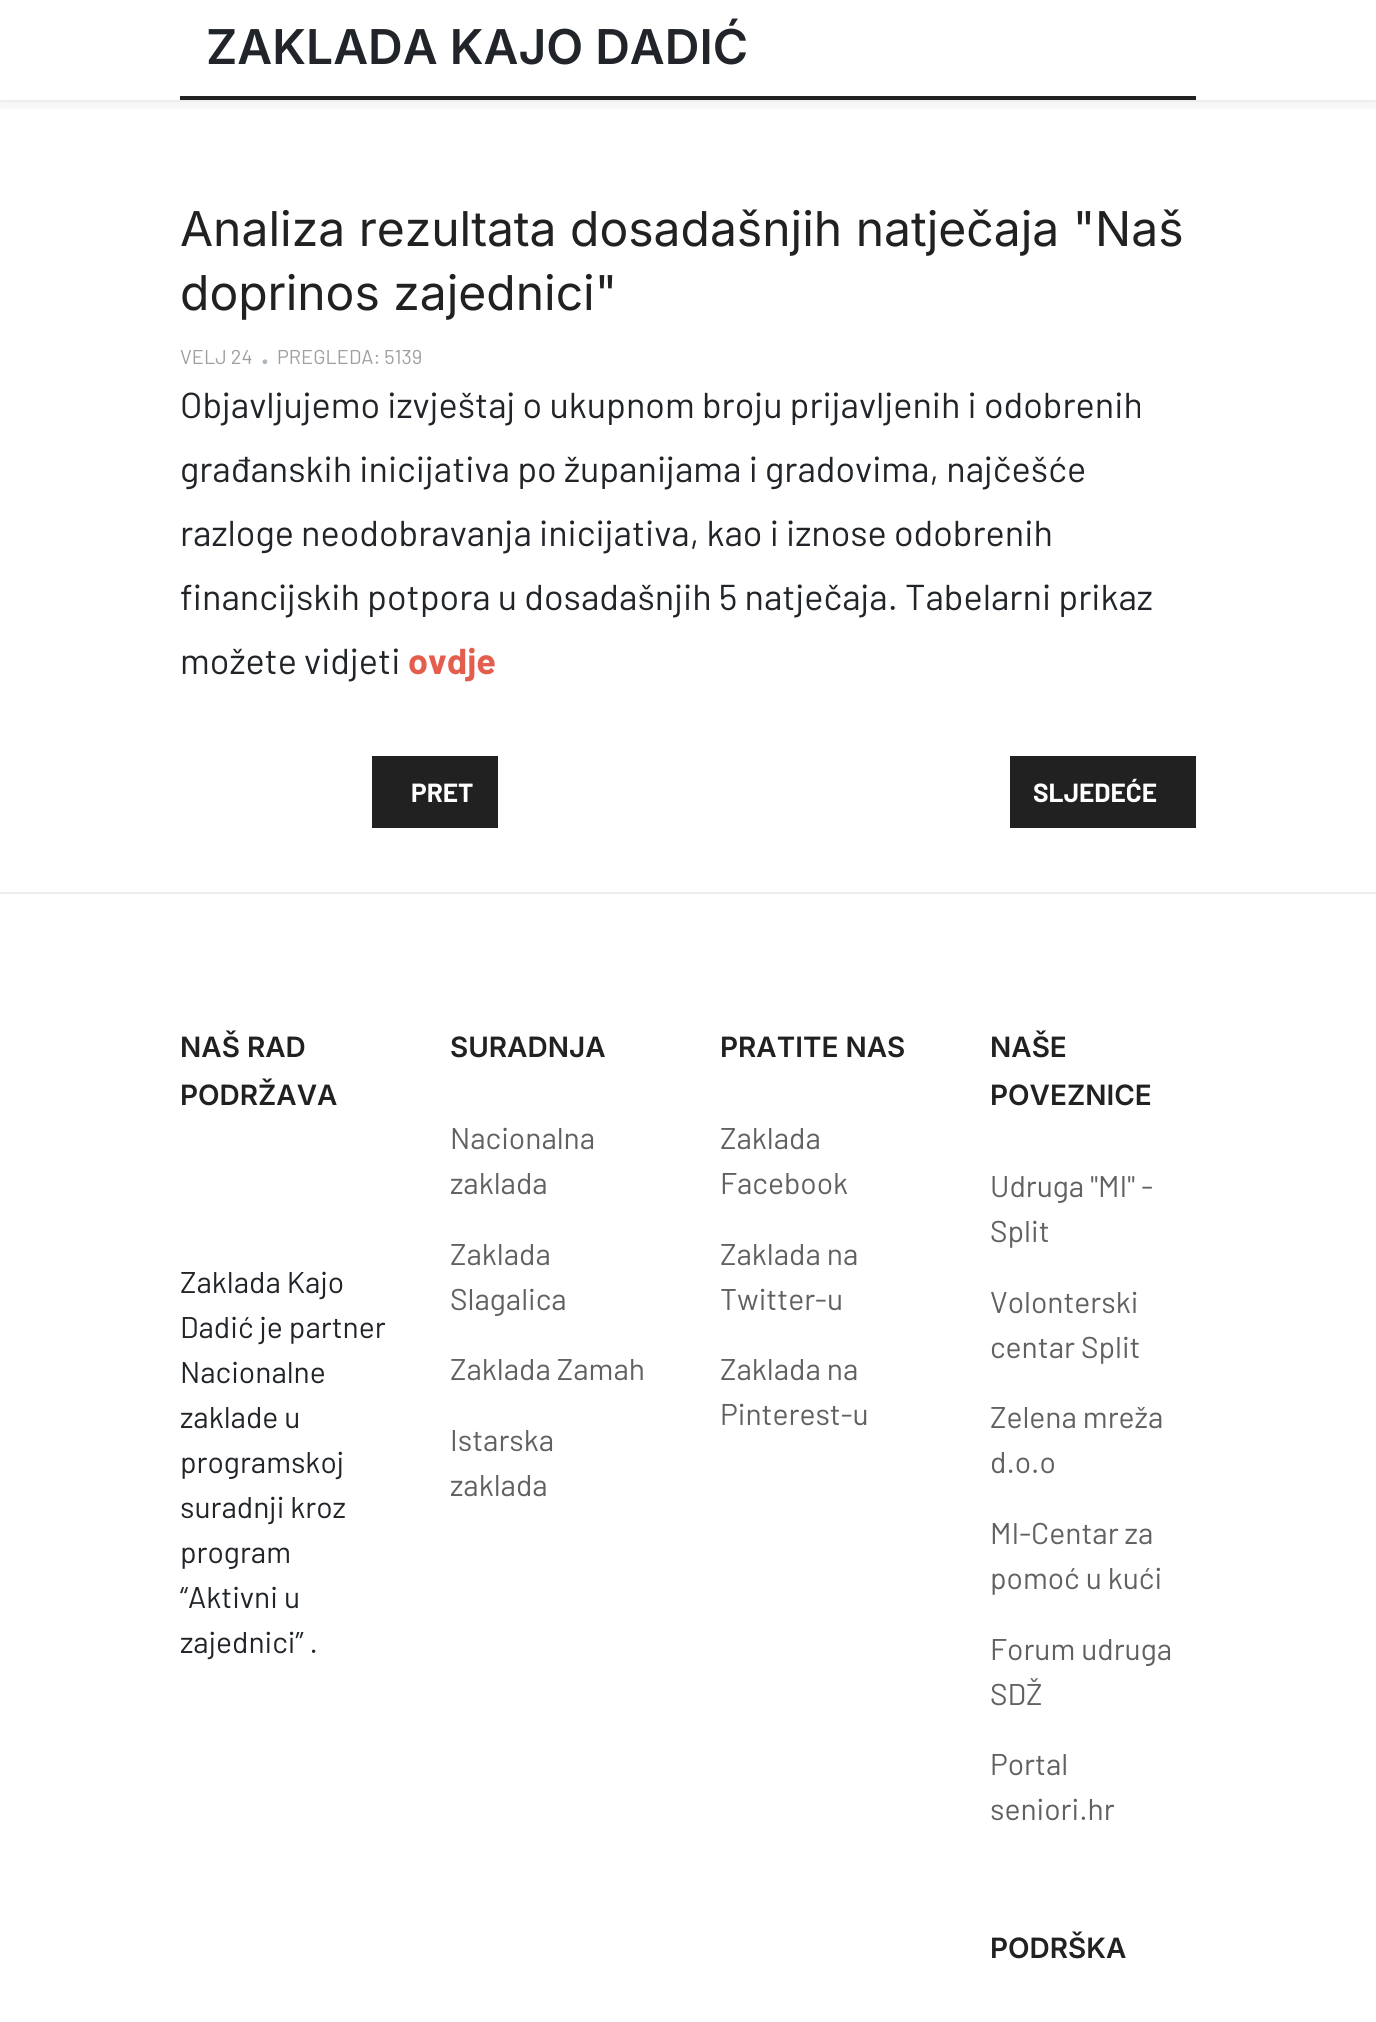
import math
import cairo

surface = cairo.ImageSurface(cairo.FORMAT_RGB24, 1376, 2022)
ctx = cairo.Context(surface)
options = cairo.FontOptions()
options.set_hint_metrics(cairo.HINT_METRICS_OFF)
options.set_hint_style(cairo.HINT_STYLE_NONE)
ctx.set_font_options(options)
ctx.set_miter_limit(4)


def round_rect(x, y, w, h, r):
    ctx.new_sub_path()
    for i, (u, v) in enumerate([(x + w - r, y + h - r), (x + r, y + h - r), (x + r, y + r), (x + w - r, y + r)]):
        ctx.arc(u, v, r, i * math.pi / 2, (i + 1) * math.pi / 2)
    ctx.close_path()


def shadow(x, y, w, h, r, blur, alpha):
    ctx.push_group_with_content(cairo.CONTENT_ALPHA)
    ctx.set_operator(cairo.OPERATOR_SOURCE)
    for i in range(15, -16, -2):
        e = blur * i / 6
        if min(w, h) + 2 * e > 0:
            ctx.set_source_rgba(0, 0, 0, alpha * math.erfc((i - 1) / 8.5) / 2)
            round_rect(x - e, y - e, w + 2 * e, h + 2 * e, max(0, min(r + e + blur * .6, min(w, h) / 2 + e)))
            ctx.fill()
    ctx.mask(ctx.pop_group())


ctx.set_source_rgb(1, 1, 1)
ctx.paint()
ctx.save()
ctx.rectangle(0, 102, 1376, 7)
ctx.clip()
ctx.set_source_rgb(0, 0, 0)
shadow(0, 6, 1376, 102, 0, 5, 0.05)
ctx.restore()
ctx.set_source_rgb(0.933, 0.933, 0.933)
ctx.rectangle(0, 100, 1376, 2)
ctx.fill()
ctx.set_source_rgb(0.129, 0.129, 0.129)
ctx.rectangle(180, 96, 1016, 4)
ctx.fill()
ctx.select_font_face("Inter SemiBold")
ctx.set_font_size(48)
ctx.set_source_rgb(0.129, 0.145, 0.161)
ctx.move_to(206, 64)
ctx.show_text("ZAKLADA KAJO DADIĆ")
ctx.select_font_face("Inter")
ctx.set_source_rgb(0.129, 0.129, 0.129)
ctx.move_to(180, 246)
ctx.show_text("Analiza rezultata dosadašnjih natječaja \"Naš")
ctx.move_to(180, 310)
ctx.show_text("doprinos zajednici\"")
ctx.select_font_face("Barlow")
ctx.set_font_size(20)
ctx.set_source_rgb(0.62, 0.62, 0.62)
ctx.move_to(180, 364)
ctx.show_text("VELJ 24")
ctx.select_font_face("Barlow", cairo.FONT_SLANT_NORMAL, cairo.FONT_WEIGHT_BOLD)
ctx.set_font_size(30)
ctx.set_source_rgb(0.678, 0.71, 0.741)
ctx.move_to(261, 364)
ctx.show_text(".")
ctx.select_font_face("Barlow")
ctx.set_font_size(20)
ctx.set_source_rgb(0.62, 0.62, 0.62)
ctx.move_to(277, 364)
ctx.show_text("PREGLEDA: 5139")
ctx.set_font_size(36)
ctx.set_source_rgb(0.129, 0.145, 0.161)
ctx.move_to(180, 418)
ctx.show_text("Objavljujemo izvještaj o ukupnom broju prijavljenih i odobrenih")
ctx.move_to(180, 482)
ctx.show_text("građanskih inicijativa po županijama i gradovima, najčešće")
ctx.move_to(180, 546)
ctx.show_text("razloge neodobravanja inicijativa, kao i iznose odobrenih")
ctx.move_to(180, 610)
ctx.show_text("financijskih potpora u dosadašnjih 5 natječaja. Tabelarni prikaz")
ctx.move_to(180, 674)
ctx.show_text("možete vidjeti")
ctx.select_font_face("Barlow", cairo.FONT_SLANT_NORMAL, cairo.FONT_WEIGHT_BOLD)
ctx.set_source_rgb(0.894, 0.369, 0.302)
ctx.move_to(408, 674)
ctx.show_text("ovdje")
ctx.set_source_rgb(0.129, 0.129, 0.129)
ctx.rectangle(372, 756, 126, 72)
ctx.fill()
ctx.set_font_size(26.25)
ctx.set_source_rgb(1, 1, 1)
ctx.move_to(411, 802)
ctx.show_text("PRET")
ctx.set_source_rgb(0.129, 0.129, 0.129)
ctx.rectangle(1010, 756, 186, 72)
ctx.fill()
ctx.set_source_rgb(1, 1, 1)
ctx.move_to(1033, 802)
ctx.show_text("SLJEDEĆE")
ctx.set_source_rgb(0.933, 0.933, 0.933)
ctx.rectangle(0, 892, 1376, 2)
ctx.fill()
ctx.select_font_face("Inter SemiBold")
ctx.set_font_size(28)
ctx.set_source_rgb(0.129, 0.129, 0.129)
ctx.move_to(180, 1057)
ctx.show_text("NAŠ RAD")
ctx.move_to(180, 1105)
ctx.show_text("PODRŽAVA")
ctx.select_font_face("Barlow")
ctx.set_font_size(30)
ctx.set_source_rgb(0.129, 0.145, 0.161)
ctx.move_to(180, 1293)
ctx.show_text("Zaklada Kajo")
ctx.move_to(180, 1338)
ctx.show_text("Dadić je partner")
ctx.move_to(180, 1383)
ctx.show_text("Nacionalne")
ctx.move_to(180, 1428)
ctx.show_text("zaklade u")
ctx.move_to(180, 1473)
ctx.show_text("programskoj")
ctx.move_to(180, 1518)
ctx.show_text("suradnji kroz")
ctx.move_to(180, 1563)
ctx.show_text("program")
ctx.move_to(180, 1608)
ctx.show_text("“Aktivni u")
ctx.move_to(180, 1653)
ctx.show_text("zajednici” .")
ctx.select_font_face("Inter SemiBold")
ctx.set_font_size(28)
ctx.set_source_rgb(0.129, 0.129, 0.129)
ctx.move_to(450, 1057)
ctx.show_text("SURADNJA")
ctx.select_font_face("Barlow")
ctx.set_font_size(30)
ctx.set_source_rgb(0.38, 0.38, 0.38)
ctx.move_to(450, 1149)
ctx.show_text("Nacionalna")
ctx.move_to(450, 1194)
ctx.show_text("zaklada")
ctx.move_to(450, 1265)
ctx.show_text("Zaklada")
ctx.move_to(450, 1310)
ctx.show_text("Slagalica")
ctx.move_to(450, 1380)
ctx.show_text("Zaklada Zamah")
ctx.move_to(450, 1451)
ctx.show_text("Istarska")
ctx.move_to(450, 1496)
ctx.show_text("zaklada")
ctx.select_font_face("Inter SemiBold")
ctx.set_font_size(28)
ctx.set_source_rgb(0.129, 0.129, 0.129)
ctx.move_to(720, 1057)
ctx.show_text("PRATITE NAS")
ctx.select_font_face("Barlow")
ctx.set_font_size(30)
ctx.set_source_rgb(0.38, 0.38, 0.38)
ctx.move_to(720, 1149)
ctx.show_text("Zaklada")
ctx.move_to(720, 1194)
ctx.show_text("Facebook")
ctx.move_to(720, 1265)
ctx.show_text("Zaklada na")
ctx.move_to(720, 1310)
ctx.show_text("Twitter-u")
ctx.move_to(720, 1380)
ctx.show_text("Zaklada na")
ctx.move_to(720, 1425)
ctx.show_text("Pinterest-u")
ctx.select_font_face("Inter SemiBold")
ctx.set_font_size(28)
ctx.set_source_rgb(0.129, 0.129, 0.129)
ctx.move_to(990, 1057)
ctx.show_text("NAŠE")
ctx.move_to(990, 1105)
ctx.show_text("POVEZNICE")
ctx.select_font_face("Barlow")
ctx.set_font_size(30)
ctx.set_source_rgb(0.38, 0.38, 0.38)
ctx.move_to(990, 1197)
ctx.show_text("Udruga \"MI\" -")
ctx.move_to(990, 1242)
ctx.show_text("Split")
ctx.move_to(990, 1313)
ctx.show_text("Volonterski")
ctx.move_to(990, 1358)
ctx.show_text("centar Split")
ctx.move_to(990, 1428)
ctx.show_text("Zelena mreža")
ctx.move_to(990, 1473)
ctx.show_text("d.o.o")
ctx.move_to(990, 1544)
ctx.show_text("MI-Centar za")
ctx.move_to(990, 1589)
ctx.show_text("pomoć u kući")
ctx.move_to(990, 1660)
ctx.show_text("Forum udruga")
ctx.move_to(990, 1705)
ctx.show_text("SDŽ")
ctx.move_to(990, 1775)
ctx.show_text("Portal")
ctx.move_to(990, 1820)
ctx.show_text("seniori.hr")
ctx.select_font_face("Inter SemiBold")
ctx.set_font_size(28)
ctx.set_source_rgb(0.129, 0.129, 0.129)
ctx.move_to(990, 1958)
ctx.show_text("PODRŠKA")
surface.write_to_png("page.png")
